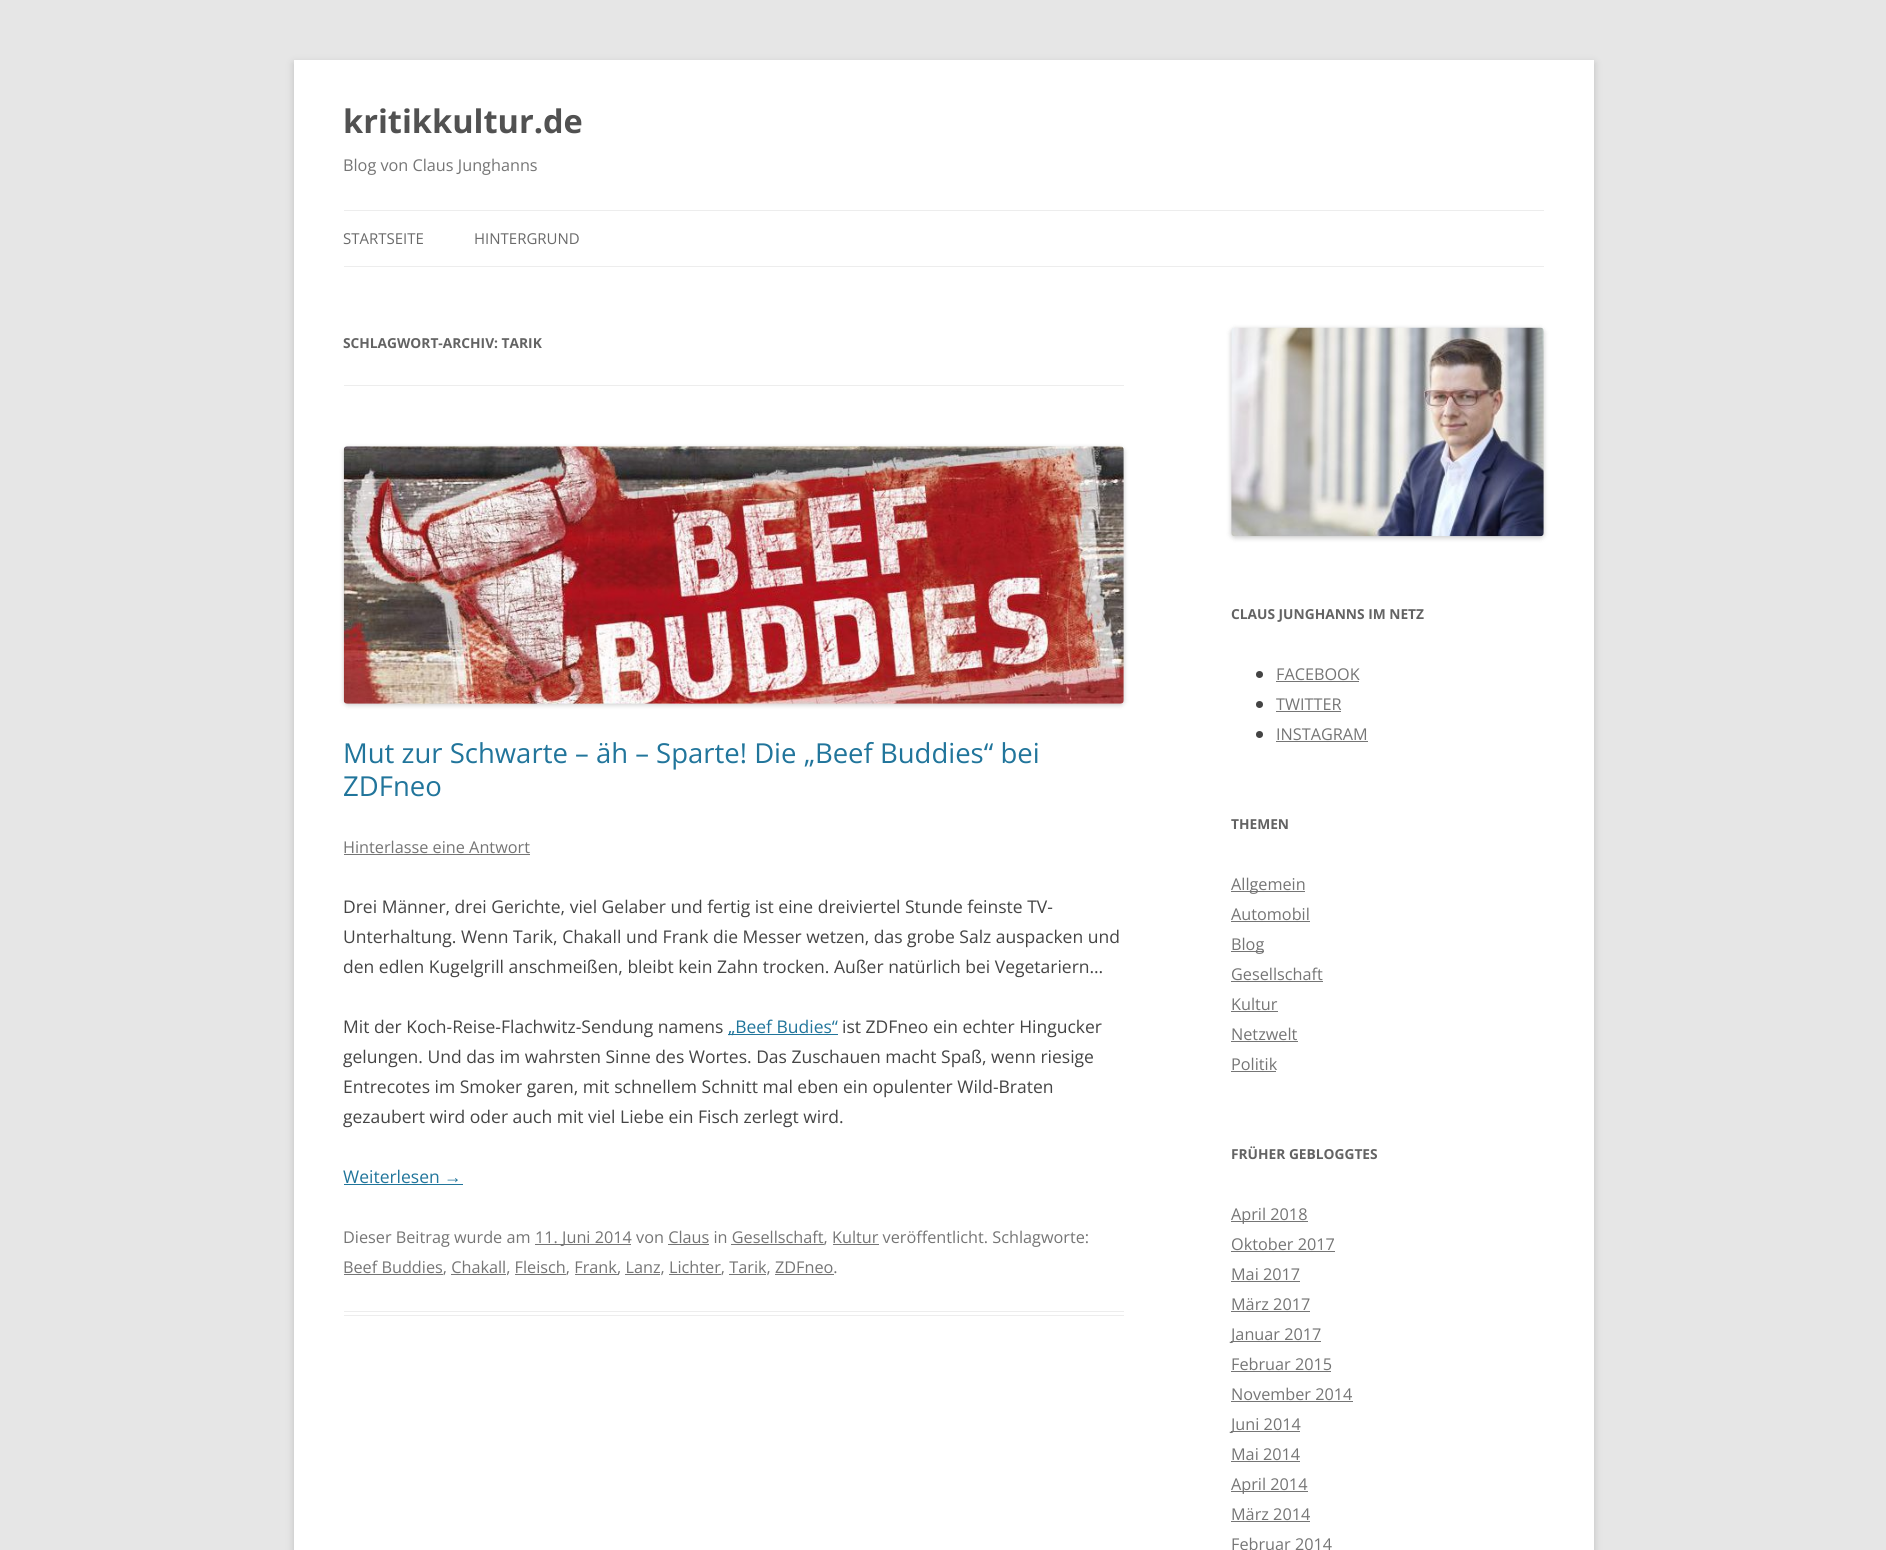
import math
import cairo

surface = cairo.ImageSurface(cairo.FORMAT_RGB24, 1886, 1550)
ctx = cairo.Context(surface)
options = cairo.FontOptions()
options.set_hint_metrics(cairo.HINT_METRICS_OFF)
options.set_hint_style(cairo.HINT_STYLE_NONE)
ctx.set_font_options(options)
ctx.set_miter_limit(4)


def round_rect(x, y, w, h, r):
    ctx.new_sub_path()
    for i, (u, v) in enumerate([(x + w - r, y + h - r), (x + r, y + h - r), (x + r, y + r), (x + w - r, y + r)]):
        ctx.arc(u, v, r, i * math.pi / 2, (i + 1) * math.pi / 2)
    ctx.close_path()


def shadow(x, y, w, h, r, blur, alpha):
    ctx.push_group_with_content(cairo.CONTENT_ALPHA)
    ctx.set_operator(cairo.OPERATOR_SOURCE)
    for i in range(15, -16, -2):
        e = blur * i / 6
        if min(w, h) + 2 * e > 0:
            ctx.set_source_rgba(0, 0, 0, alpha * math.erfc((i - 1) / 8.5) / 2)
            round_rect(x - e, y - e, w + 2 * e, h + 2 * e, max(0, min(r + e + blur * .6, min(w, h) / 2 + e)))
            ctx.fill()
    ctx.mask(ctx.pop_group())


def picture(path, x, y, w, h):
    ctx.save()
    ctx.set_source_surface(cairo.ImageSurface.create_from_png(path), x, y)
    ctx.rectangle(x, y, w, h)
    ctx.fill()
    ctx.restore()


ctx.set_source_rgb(0.902, 0.902, 0.902)
ctx.paint()
ctx.set_source_rgb(0.392, 0.392, 0.392)
shadow(294, 63, 1300, 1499, 0, 4, 0.3)
ctx.set_source_rgb(1, 1, 1)
ctx.rectangle(294, 60, 1300, 1490)
ctx.fill()
ctx.select_font_face("Open Sans", cairo.FONT_SLANT_NORMAL, cairo.FONT_WEIGHT_BOLD)
ctx.set_font_size(32.5)
ctx.set_source_rgb(0.318, 0.318, 0.318)
ctx.move_to(343, 133)
ctx.show_text("kritikkultur.de")
ctx.select_font_face("Open Sans")
ctx.set_font_size(16.25)
ctx.set_source_rgb(0.459, 0.459, 0.459)
ctx.move_to(343, 171)
ctx.show_text("Blog von Claus Junghanns")
ctx.set_source_rgb(0.929, 0.929, 0.929)
ctx.rectangle(344, 210, 1200, 1)
ctx.fill()
ctx.rectangle(344, 266, 1200, 1)
ctx.fill()
ctx.set_font_size(15)
ctx.set_source_rgb(0.416, 0.416, 0.416)
ctx.move_to(343, 244)
ctx.show_text("STARTSEITE")
ctx.move_to(474, 244)
ctx.show_text("HINTERGRUND")
ctx.set_source_rgb(0.929, 0.929, 0.929)
ctx.rectangle(344, 385, 780, 1)
ctx.fill()
ctx.select_font_face("Open Sans", cairo.FONT_SLANT_NORMAL, cairo.FONT_WEIGHT_BOLD)
ctx.set_font_size(13.75)
ctx.set_source_rgb(0.388, 0.388, 0.388)
ctx.move_to(343, 348)
ctx.show_text("SCHLAGWORT-ARCHIV: TARIK")
ctx.set_source_rgb(0.929, 0.929, 0.929)
ctx.rectangle(344, 1311, 780, 1)
ctx.fill()
ctx.rectangle(344, 1315, 780, 1)
ctx.fill()
ctx.set_source_rgb(0, 0, 0)
shadow(344, 448, 780, 257, 4, 2.5, 0.2)
picture("img1.png", 343, 446, 781, 258)
ctx.select_font_face("Open Sans")
ctx.set_font_size(27.5)
ctx.set_source_rgb(0.129, 0.459, 0.608)
ctx.move_to(343, 763)
ctx.show_text("Mut zur Schwarte – äh – Sparte! Die „Beef Buddies“ bei")
ctx.move_to(343, 796)
ctx.show_text("ZDFneo")
ctx.set_font_size(16.25)
ctx.set_source_rgb(0.459, 0.459, 0.459)
ctx.move_to(343, 853)
ctx.show_text("Hinterlasse eine Antwort")
ctx.rectangle(344, 854, 186, 1)
ctx.fill()
ctx.set_font_size(17.5)
ctx.set_source_rgb(0.267, 0.267, 0.267)
ctx.move_to(343, 913)
ctx.show_text("Drei Männer, drei Gerichte, viel Gelaber und fertig ist eine dreiviertel Stunde feinste TV-")
ctx.move_to(343, 943)
ctx.show_text("Unterhaltung. Wenn Tarik, Chakall und Frank die Messer wetzen, das grobe Salz auspacken und")
ctx.move_to(343, 973)
ctx.show_text("den edlen Kugelgrill anschmeißen, bleibt kein Zahn trocken. Außer natürlich bei Vegetariern…")
ctx.move_to(343, 1033)
ctx.show_text("Mit der Koch-Reise-Flachwitz-Sendung namens")
ctx.set_source_rgb(0.129, 0.459, 0.608)
ctx.rectangle(728, 1034, 110, 1)
ctx.fill()
ctx.move_to(728, 1033)
ctx.show_text("„Beef Budies“")
ctx.set_source_rgb(0.267, 0.267, 0.267)
ctx.move_to(842, 1033)
ctx.show_text("ist ZDFneo ein echter Hingucker")
ctx.move_to(343, 1063)
ctx.show_text("gelungen. Und das im wahrsten Sinne des Wortes. Das Zuschauen macht Spaß, wenn riesige")
ctx.move_to(343, 1093)
ctx.show_text("Entrecotes im Smoker garen, mit schnellem Schnitt mal eben ein opulenter Wild-Braten")
ctx.move_to(343, 1123)
ctx.show_text("gezaubert wird oder auch mit viel Liebe ein Fisch zerlegt wird.")
ctx.set_source_rgb(0.129, 0.459, 0.608)
ctx.move_to(343, 1183)
ctx.show_text("Weiterlesen")
ctx.select_font_face("Liberation Sans")
ctx.move_to(444, 1183)
ctx.show_text("→")
ctx.rectangle(344, 1184, 119, 1)
ctx.fill()
ctx.select_font_face("Open Sans")
ctx.set_font_size(16.25)
ctx.set_source_rgb(0.459, 0.459, 0.459)
ctx.move_to(343, 1243)
ctx.show_text("Dieser Beitrag wurde am")
ctx.rectangle(535, 1244, 96, 1)
ctx.fill()
ctx.move_to(535, 1243)
ctx.show_text("11. Juni 2014 von Claus in Gesellschaft, Kultur veröffentlicht. Schlagworte:")
ctx.rectangle(344, 1274, 99, 1)
ctx.fill()
ctx.move_to(343, 1273)
ctx.show_text("Beef Buddies, Chakall, Fleisch, Frank")
ctx.rectangle(451, 1274, 55, 1)
ctx.fill()
ctx.rectangle(515, 1274, 51, 1)
ctx.fill()
ctx.rectangle(575, 1274, 43, 1)
ctx.fill()
ctx.move_to(617, 1273)
ctx.show_text(", Lanz, Lichter, Tarik, ZDFneo.")
ctx.rectangle(668, 1244, 41, 1)
ctx.fill()
ctx.rectangle(731, 1244, 93, 1)
ctx.fill()
ctx.rectangle(833, 1244, 46, 1)
ctx.fill()
ctx.rectangle(625, 1274, 35, 1)
ctx.fill()
ctx.rectangle(669, 1274, 52, 1)
ctx.fill()
ctx.rectangle(729, 1274, 37, 1)
ctx.fill()
ctx.rectangle(775, 1274, 59, 1)
ctx.fill()
ctx.set_source_rgb(0, 0, 0)
shadow(1231, 329, 313, 209, 4, 2.5, 0.2)
picture("img2.png", 1231, 327, 313, 210)
ctx.select_font_face("Open Sans", cairo.FONT_SLANT_NORMAL, cairo.FONT_WEIGHT_BOLD)
ctx.set_font_size(13.75)
ctx.set_source_rgb(0.388, 0.388, 0.388)
ctx.move_to(1231, 619)
ctx.show_text("CLAUS JUNGHANNS IM NETZ")
ctx.set_source_rgb(0.267, 0.267, 0.267)
ctx.new_path()
ctx.arc(1259.5, 674.5, 3.5, 0, 2 * math.pi)
ctx.fill()
ctx.select_font_face("Open Sans")
ctx.set_font_size(16.25)
ctx.set_source_rgb(0.459, 0.459, 0.459)
ctx.move_to(1276, 680)
ctx.show_text("FACEBOOK")
ctx.rectangle(1276, 681, 83, 1)
ctx.fill()
ctx.set_source_rgb(0.267, 0.267, 0.267)
ctx.arc(1259.5, 704.5, 3.5, 0, 2 * math.pi)
ctx.fill()
ctx.set_source_rgb(0.459, 0.459, 0.459)
ctx.move_to(1276, 710)
ctx.show_text("TWITTER")
ctx.rectangle(1276, 711, 65, 1)
ctx.fill()
ctx.set_source_rgb(0.267, 0.267, 0.267)
ctx.arc(1259.5, 734.5, 3.5, 0, 2 * math.pi)
ctx.fill()
ctx.set_source_rgb(0.459, 0.459, 0.459)
ctx.move_to(1276, 740)
ctx.show_text("INSTAGRAM")
ctx.rectangle(1276, 741, 92, 1)
ctx.fill()
ctx.select_font_face("Open Sans", cairo.FONT_SLANT_NORMAL, cairo.FONT_WEIGHT_BOLD)
ctx.set_font_size(13.75)
ctx.set_source_rgb(0.388, 0.388, 0.388)
ctx.move_to(1231, 829)
ctx.show_text("THEMEN")
ctx.set_source_rgb(0.459, 0.459, 0.459)
ctx.rectangle(1231, 891, 74, 1)
ctx.fill()
ctx.select_font_face("Open Sans")
ctx.set_font_size(16.25)
ctx.move_to(1231, 890)
ctx.show_text("Allgemein")
ctx.move_to(1231, 920)
ctx.show_text("Automobil")
ctx.rectangle(1231, 921, 79, 1)
ctx.fill()
ctx.rectangle(1231, 951, 33, 1)
ctx.fill()
ctx.move_to(1231, 950)
ctx.show_text("Blog")
ctx.move_to(1231, 980)
ctx.show_text("Gesellschaft")
ctx.rectangle(1231, 981, 92, 1)
ctx.fill()
ctx.move_to(1231, 1010)
ctx.show_text("Kultur")
ctx.rectangle(1231, 1011, 47, 1)
ctx.fill()
ctx.move_to(1231, 1040)
ctx.show_text("Netzwelt")
ctx.rectangle(1231, 1041, 67, 1)
ctx.fill()
ctx.move_to(1231, 1070)
ctx.show_text("Politik")
ctx.rectangle(1231, 1071, 45, 1)
ctx.fill()
ctx.select_font_face("Open Sans", cairo.FONT_SLANT_NORMAL, cairo.FONT_WEIGHT_BOLD)
ctx.set_font_size(13.75)
ctx.set_source_rgb(0.388, 0.388, 0.388)
ctx.move_to(1231, 1159)
ctx.show_text("FRÜHER GEBLOGGTES")
ctx.set_source_rgb(0.459, 0.459, 0.459)
ctx.rectangle(1231, 1221, 77, 1)
ctx.fill()
ctx.select_font_face("Open Sans")
ctx.set_font_size(16.25)
ctx.move_to(1231, 1220)
ctx.show_text("April 2018")
ctx.move_to(1231, 1250)
ctx.show_text("Oktober 2017")
ctx.rectangle(1231, 1251, 104, 1)
ctx.fill()
ctx.move_to(1231, 1280)
ctx.show_text("Mai 2017")
ctx.rectangle(1231, 1281, 69, 1)
ctx.fill()
ctx.move_to(1231, 1310)
ctx.show_text("März 2017")
ctx.rectangle(1231, 1311, 79, 1)
ctx.fill()
ctx.rectangle(1231, 1341, 90, 1)
ctx.fill()
ctx.move_to(1231, 1340)
ctx.show_text("Januar 2017")
ctx.move_to(1231, 1370)
ctx.show_text("Februar 2015")
ctx.rectangle(1231, 1371, 100, 1)
ctx.fill()
ctx.move_to(1231, 1400)
ctx.show_text("November 2014")
ctx.rectangle(1231, 1401, 122, 1)
ctx.fill()
ctx.rectangle(1231, 1431, 69, 1)
ctx.fill()
ctx.move_to(1231, 1430)
ctx.show_text("Juni 2014")
ctx.move_to(1231, 1460)
ctx.show_text("Mai 2014")
ctx.rectangle(1231, 1461, 69, 1)
ctx.fill()
ctx.rectangle(1231, 1491, 77, 1)
ctx.fill()
ctx.move_to(1231, 1490)
ctx.show_text("April 2014")
ctx.move_to(1231, 1520)
ctx.show_text("März 2014")
ctx.rectangle(1231, 1521, 79, 1)
ctx.fill()
ctx.move_to(1231, 1550)
ctx.show_text("Februar 2014")
surface.write_to_png("page.png")
